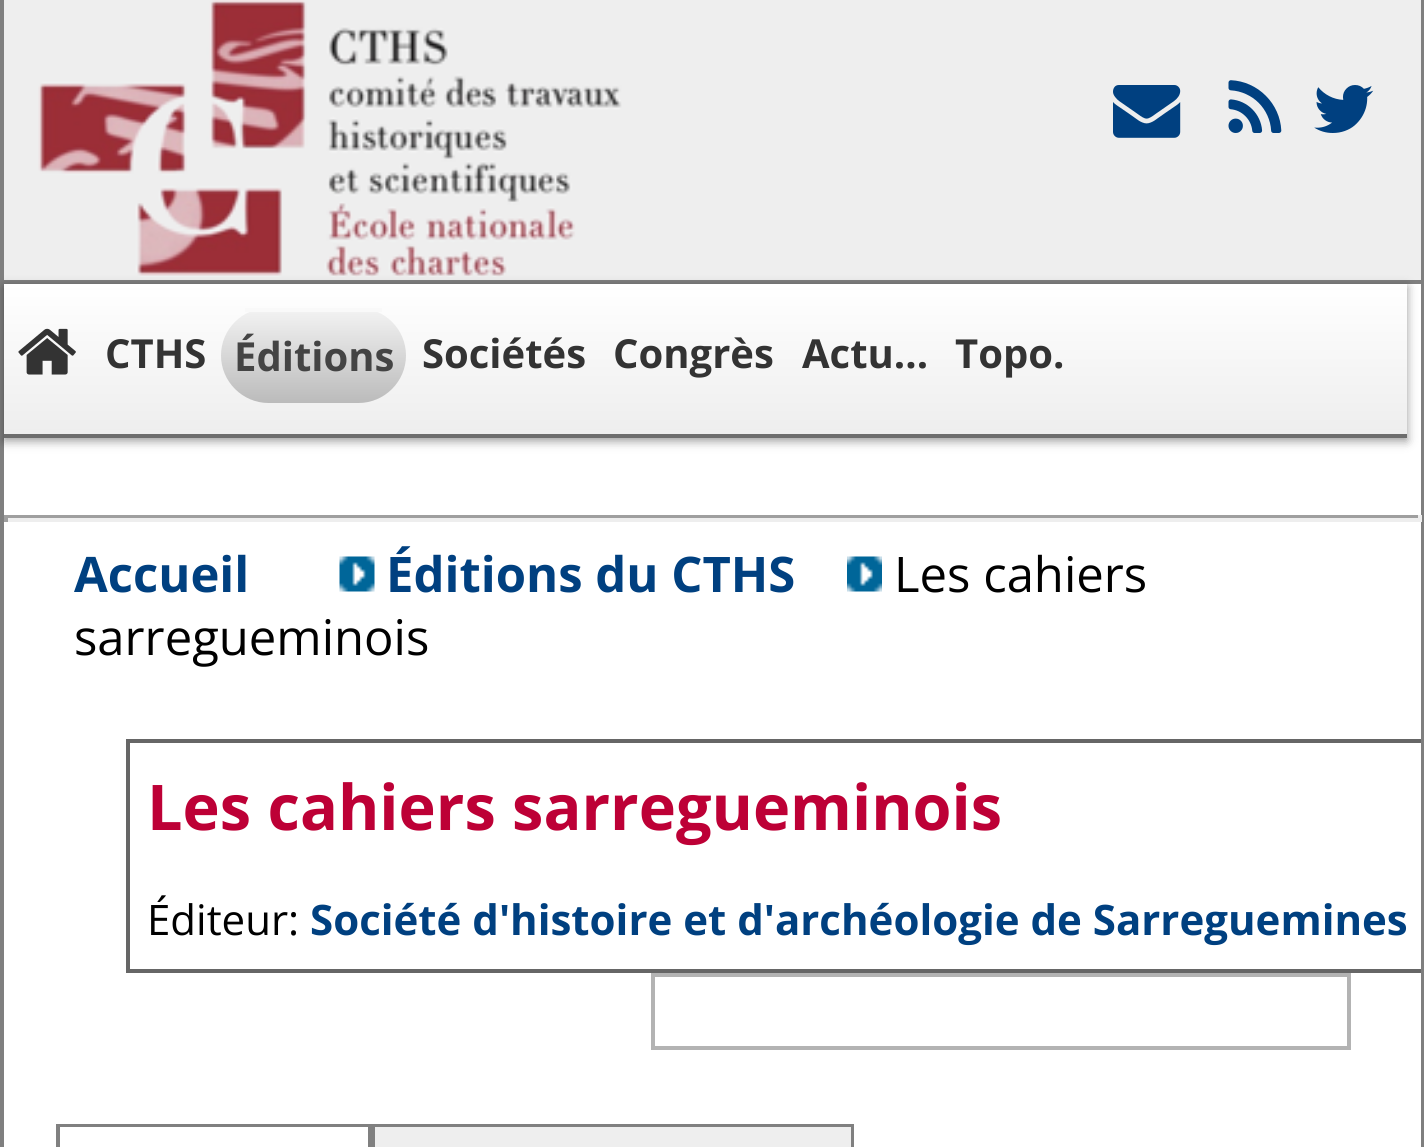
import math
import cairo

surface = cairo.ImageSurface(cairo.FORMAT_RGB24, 1424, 1147)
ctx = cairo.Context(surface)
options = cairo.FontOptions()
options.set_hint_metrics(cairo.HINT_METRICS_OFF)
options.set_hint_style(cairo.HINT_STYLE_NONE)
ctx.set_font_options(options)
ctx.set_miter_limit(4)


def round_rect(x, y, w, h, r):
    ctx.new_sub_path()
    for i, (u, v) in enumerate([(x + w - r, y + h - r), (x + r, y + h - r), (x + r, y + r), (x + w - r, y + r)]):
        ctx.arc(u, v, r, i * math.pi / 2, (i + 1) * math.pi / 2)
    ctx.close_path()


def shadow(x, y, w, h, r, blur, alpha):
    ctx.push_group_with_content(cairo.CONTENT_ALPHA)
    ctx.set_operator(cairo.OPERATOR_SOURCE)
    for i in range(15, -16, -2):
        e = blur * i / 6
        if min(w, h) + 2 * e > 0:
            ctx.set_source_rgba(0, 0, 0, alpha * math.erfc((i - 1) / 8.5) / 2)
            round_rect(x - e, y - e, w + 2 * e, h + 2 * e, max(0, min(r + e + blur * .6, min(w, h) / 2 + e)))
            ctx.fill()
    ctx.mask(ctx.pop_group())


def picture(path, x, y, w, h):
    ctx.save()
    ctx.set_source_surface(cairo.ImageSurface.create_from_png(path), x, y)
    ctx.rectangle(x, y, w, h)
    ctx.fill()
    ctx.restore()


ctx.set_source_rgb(1, 1, 1)
ctx.paint()
ctx.set_source_rgb(0.498, 0.498, 0.498)
ctx.rectangle(1421, 0, 3, 1147)
ctx.fill()
ctx.rectangle(0, 0, 4, 1147)
ctx.fill()
ctx.set_source_rgb(0.933, 0.933, 0.933)
ctx.rectangle(4, 0, 1417, 280)
ctx.fill()
ctx.set_source_rgb(0.498, 0.498, 0.498)
ctx.rectangle(4, 280, 1417, 4)
ctx.fill()
picture("img1.png", 38, 0, 584, 277)
picture("img2.png", 1113, 85, 68, 53)
picture("img3.png", 1228, 80, 54, 53)
picture("img4.png", 1314, 85, 60, 48)
ctx.set_source_rgb(0, 0, 0)
shadow(4, 287, 1403, 154, 0, 5, 0.4)
gradient = cairo.LinearGradient(3.5, 284, 3.5, 434)
gradient.add_color_stop_rgba(0, 1, 1, 1, 1)
gradient.add_color_stop_rgba(1, 0.933, 0.933, 0.933, 1)
ctx.set_source(gradient)
ctx.rectangle(4, 284, 1403, 150)
ctx.fill()
ctx.set_source_rgb(0.427, 0.427, 0.427)
ctx.rectangle(4, 434, 1403, 4)
ctx.fill()
picture("img5.png", 18, 328, 58, 47)
ctx.select_font_face("Open Sans", cairo.FONT_SLANT_NORMAL, cairo.FONT_WEIGHT_BOLD)
ctx.set_font_size(40)
ctx.set_source_rgb(0.2, 0.2, 0.2)
ctx.move_to(105, 368)
ctx.show_text("CTHS")
ctx.save()
round_rect(221, 308, 185, 95, 47.5)
ctx.clip()
gradient = cairo.LinearGradient(221, 312, 221, 403)
gradient.add_color_stop_rgba(0, 0.945, 0.945, 0.945, 1)
gradient.add_color_stop_rgba(1, 0.733, 0.733, 0.733, 1)
ctx.set_source(gradient)
ctx.new_path()
ctx.move_to(221, 312)
ctx.line_to(406, 312)
ctx.line_to(406, 355.5)
ctx.curve_to(406, 381.5, 384.5, 403, 358.5, 403)
ctx.line_to(268.5, 403)
ctx.curve_to(242.5, 403, 221, 381.5, 221, 355.5)
ctx.close_path()
ctx.fill()
ctx.restore()
ctx.set_source_rgb(0.973, 0.973, 0.973)
ctx.rectangle(245, 308, 137, 4)
ctx.fill()
ctx.set_source_rgb(0.267, 0.267, 0.267)
ctx.move_to(234, 371)
ctx.show_text("Éditions")
ctx.set_source_rgb(0.2, 0.2, 0.2)
ctx.move_to(422, 368)
ctx.show_text("Sociétés")
ctx.move_to(613, 368)
ctx.show_text("Congrès")
ctx.move_to(802, 368)
ctx.show_text("Actu...")
ctx.move_to(955, 368)
ctx.show_text("Topo.")
ctx.set_source_rgb(0.624, 0.624, 0.624)
ctx.rectangle(4, 515, 1417, 3)
ctx.fill()
ctx.set_source_rgb(0.933, 0.933, 0.933)
ctx.rectangle(1418, 515, 4, 7)
ctx.fill()
ctx.rectangle(4, 518, 1417, 4)
ctx.fill()
ctx.set_source_rgb(0.624, 0.624, 0.624)
ctx.rectangle(4, 515, 4, 7)
ctx.fill()
ctx.set_font_size(49)
ctx.set_source_rgb(0, 0.251, 0.502)
ctx.move_to(74, 592)
ctx.show_text("Accueil")
picture("img6.png", 339, 556, 36, 36)
ctx.move_to(386, 592)
ctx.show_text("Éditions du CTHS")
picture("img7.png", 847, 556, 35, 36)
ctx.select_font_face("Open Sans")
ctx.set_source_rgb(0, 0, 0)
ctx.move_to(894, 592)
ctx.show_text("Les cahiers")
ctx.move_to(74, 655)
ctx.show_text("sarregueminois")
ctx.save()
ctx.rectangle(4, 543, 1417, 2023)
ctx.clip()
ctx.rectangle(128, 741, 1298, 230)
ctx.set_source_rgb(0.4, 0.4, 0.4)
ctx.set_line_width(4)
ctx.stroke()
ctx.restore()
ctx.select_font_face("Open Sans", cairo.FONT_SLANT_NORMAL, cairo.FONT_WEIGHT_BOLD)
ctx.set_font_size(63)
ctx.set_source_rgb(0.741, 0, 0.212)
ctx.move_to(147, 830)
ctx.show_text("Les cahiers sarregueminois")
ctx.select_font_face("Open Sans")
ctx.set_font_size(42)
ctx.set_source_rgb(0, 0, 0)
ctx.move_to(147, 935)
ctx.show_text("Éditeur:")
ctx.select_font_face("Open Sans", cairo.FONT_SLANT_NORMAL, cairo.FONT_WEIGHT_BOLD)
ctx.set_source_rgb(0, 0.251, 0.502)
ctx.move_to(310, 935)
ctx.show_text("Société d'histoire et d'archéologie de Sarreguemines")
ctx.rectangle(653, 975, 696, 73)
ctx.set_source_rgb(0.702, 0.702, 0.702)
ctx.set_line_width(4)
ctx.stroke()
ctx.rectangle(58, 1126, 311, 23)
ctx.set_source_rgb(0.502, 0.502, 0.502)
ctx.stroke()
ctx.set_source_rgb(1, 1, 1)
ctx.rectangle(60, 1127, 308, 20)
ctx.fill()
ctx.rectangle(373, 1126, 479, 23)
ctx.set_source_rgb(0.502, 0.502, 0.502)
ctx.stroke()
ctx.set_source_rgb(0.933, 0.933, 0.933)
ctx.rectangle(375, 1127, 476, 20)
ctx.fill()
surface.write_to_png("page.png")
